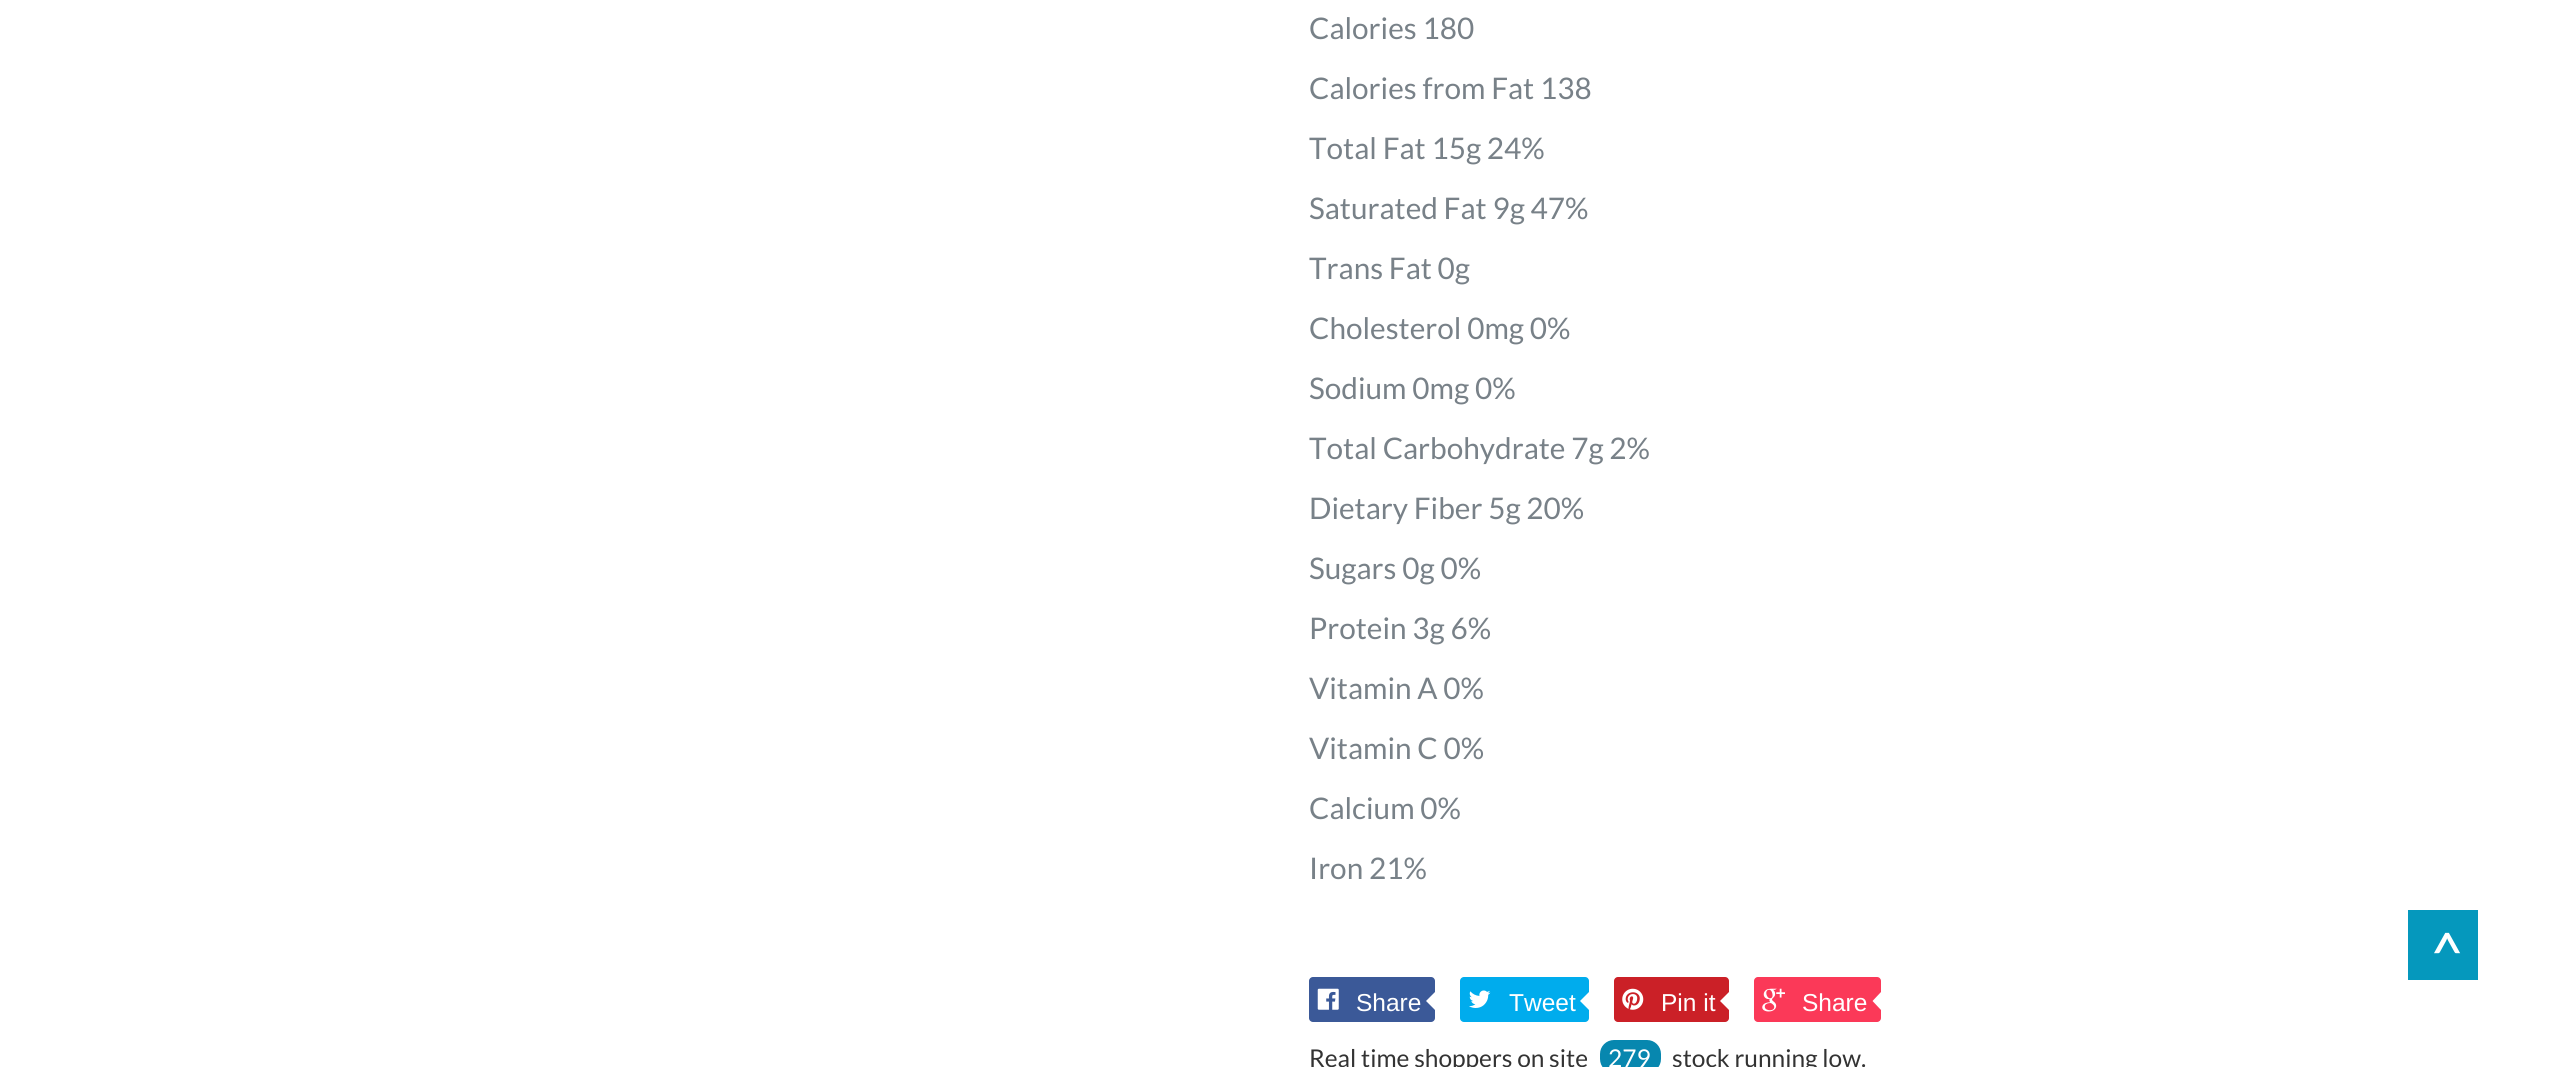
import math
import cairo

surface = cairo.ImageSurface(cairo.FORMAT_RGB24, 2565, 1067)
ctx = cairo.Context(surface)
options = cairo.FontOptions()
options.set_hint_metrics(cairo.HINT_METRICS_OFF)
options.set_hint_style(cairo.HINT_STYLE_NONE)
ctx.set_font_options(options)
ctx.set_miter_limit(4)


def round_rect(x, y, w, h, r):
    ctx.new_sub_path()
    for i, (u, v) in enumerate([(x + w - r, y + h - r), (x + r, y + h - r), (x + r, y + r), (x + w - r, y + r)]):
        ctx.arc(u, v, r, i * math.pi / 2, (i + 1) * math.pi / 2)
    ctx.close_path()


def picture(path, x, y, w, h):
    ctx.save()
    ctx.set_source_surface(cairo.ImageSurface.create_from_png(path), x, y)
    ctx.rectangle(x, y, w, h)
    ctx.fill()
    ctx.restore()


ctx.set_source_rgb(1, 1, 1)
ctx.paint()
ctx.select_font_face("Lato")
ctx.set_font_size(29.75)
ctx.set_source_rgb(0.471, 0.506, 0.533)
ctx.move_to(1309, 39)
ctx.show_text("Calories 180")
ctx.move_to(1309, 99)
ctx.show_text("Calories from Fat 138")
ctx.move_to(1309, 159)
ctx.show_text("Total Fat 15g 24%")
ctx.move_to(1309, 219)
ctx.show_text("Saturated Fat 9g 47%")
ctx.move_to(1309, 279)
ctx.show_text("Trans Fat 0g")
ctx.move_to(1309, 339)
ctx.show_text("Cholesterol 0mg 0%")
ctx.move_to(1309, 399)
ctx.show_text("Sodium 0mg 0%")
ctx.move_to(1309, 459)
ctx.show_text("Total Carbohydrate 7g 2%")
ctx.move_to(1309, 519)
ctx.show_text("Dietary Fiber 5g 20%")
ctx.move_to(1309, 579)
ctx.show_text("Sugars 0g 0%")
ctx.move_to(1309, 639)
ctx.show_text("Protein 3g 6%")
ctx.move_to(1309, 699)
ctx.show_text("Vitamin A 0%")
ctx.move_to(1309, 759)
ctx.show_text("Vitamin C 0%")
ctx.move_to(1309, 819)
ctx.show_text("Calcium 0%")
ctx.move_to(1309, 879)
ctx.show_text("Iron 21%")
ctx.set_source_rgb(0.231, 0.349, 0.596)
round_rect(1309, 977, 126, 45, 4)
ctx.fill()
picture("img1.png", 1317, 988, 22, 22)
ctx.select_font_face("Liberation Sans")
ctx.set_font_size(24.5)
ctx.set_source_rgb(1, 1, 1)
ctx.move_to(1356, 1011)
ctx.show_text("Share")
ctx.new_path()
ctx.move_to(1435, 992)
ctx.line_to(1435, 1010)
ctx.line_to(1426, 1001)
ctx.close_path()
ctx.fill()
ctx.set_source_rgb(0, 0.675, 0.929)
round_rect(1460, 977, 129, 45, 4)
ctx.fill()
picture("img2.png", 1469, 990, 22, 18)
ctx.set_source_rgb(1, 1, 1)
ctx.move_to(1509, 1011)
ctx.show_text("Tweet")
ctx.new_path()
ctx.move_to(1589, 992)
ctx.line_to(1589, 1010)
ctx.line_to(1580, 1001)
ctx.close_path()
ctx.fill()
ctx.set_source_rgb(0.796, 0.125, 0.153)
round_rect(1614, 977, 115, 45, 4)
ctx.fill()
picture("img3.png", 1622, 988, 22, 22)
ctx.set_source_rgb(1, 1, 1)
ctx.move_to(1661, 1011)
ctx.show_text("Pin it")
ctx.new_path()
ctx.move_to(1729, 992)
ctx.line_to(1729, 1010)
ctx.line_to(1720, 1001)
ctx.close_path()
ctx.fill()
ctx.set_source_rgb(0.984, 0.224, 0.345)
round_rect(1754, 977, 127, 45, 4)
ctx.fill()
picture("img4.png", 1762, 988, 23, 24)
ctx.set_source_rgb(1, 1, 1)
ctx.move_to(1802, 1011)
ctx.show_text("Share")
ctx.new_path()
ctx.move_to(1881, 992)
ctx.line_to(1881, 1010)
ctx.line_to(1872.5, 1001)
ctx.close_path()
ctx.fill()
ctx.select_font_face("Lato")
ctx.set_source_rgb(0.2, 0.2, 0.2)
ctx.move_to(1309, 1067)
ctx.show_text("Real time shoppers on site")
ctx.set_source_rgb(0.031, 0.529, 0.686)
round_rect(1600, 1040, 61, 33, 14)
ctx.fill()
ctx.set_source_rgb(1, 1, 1)
ctx.move_to(1608, 1067)
ctx.show_text("279")
ctx.set_source_rgb(0.2, 0.2, 0.2)
ctx.move_to(1672, 1067)
ctx.show_text("stock running low.")
ctx.set_source_rgb(0.02, 0.596, 0.741)
ctx.rectangle(2408, 910, 70, 70)
ctx.fill()
ctx.set_font_size(63)
ctx.set_source_rgb(1, 1, 1)
ctx.move_to(2429, 978)
ctx.show_text("^")
surface.write_to_png("page.png")
